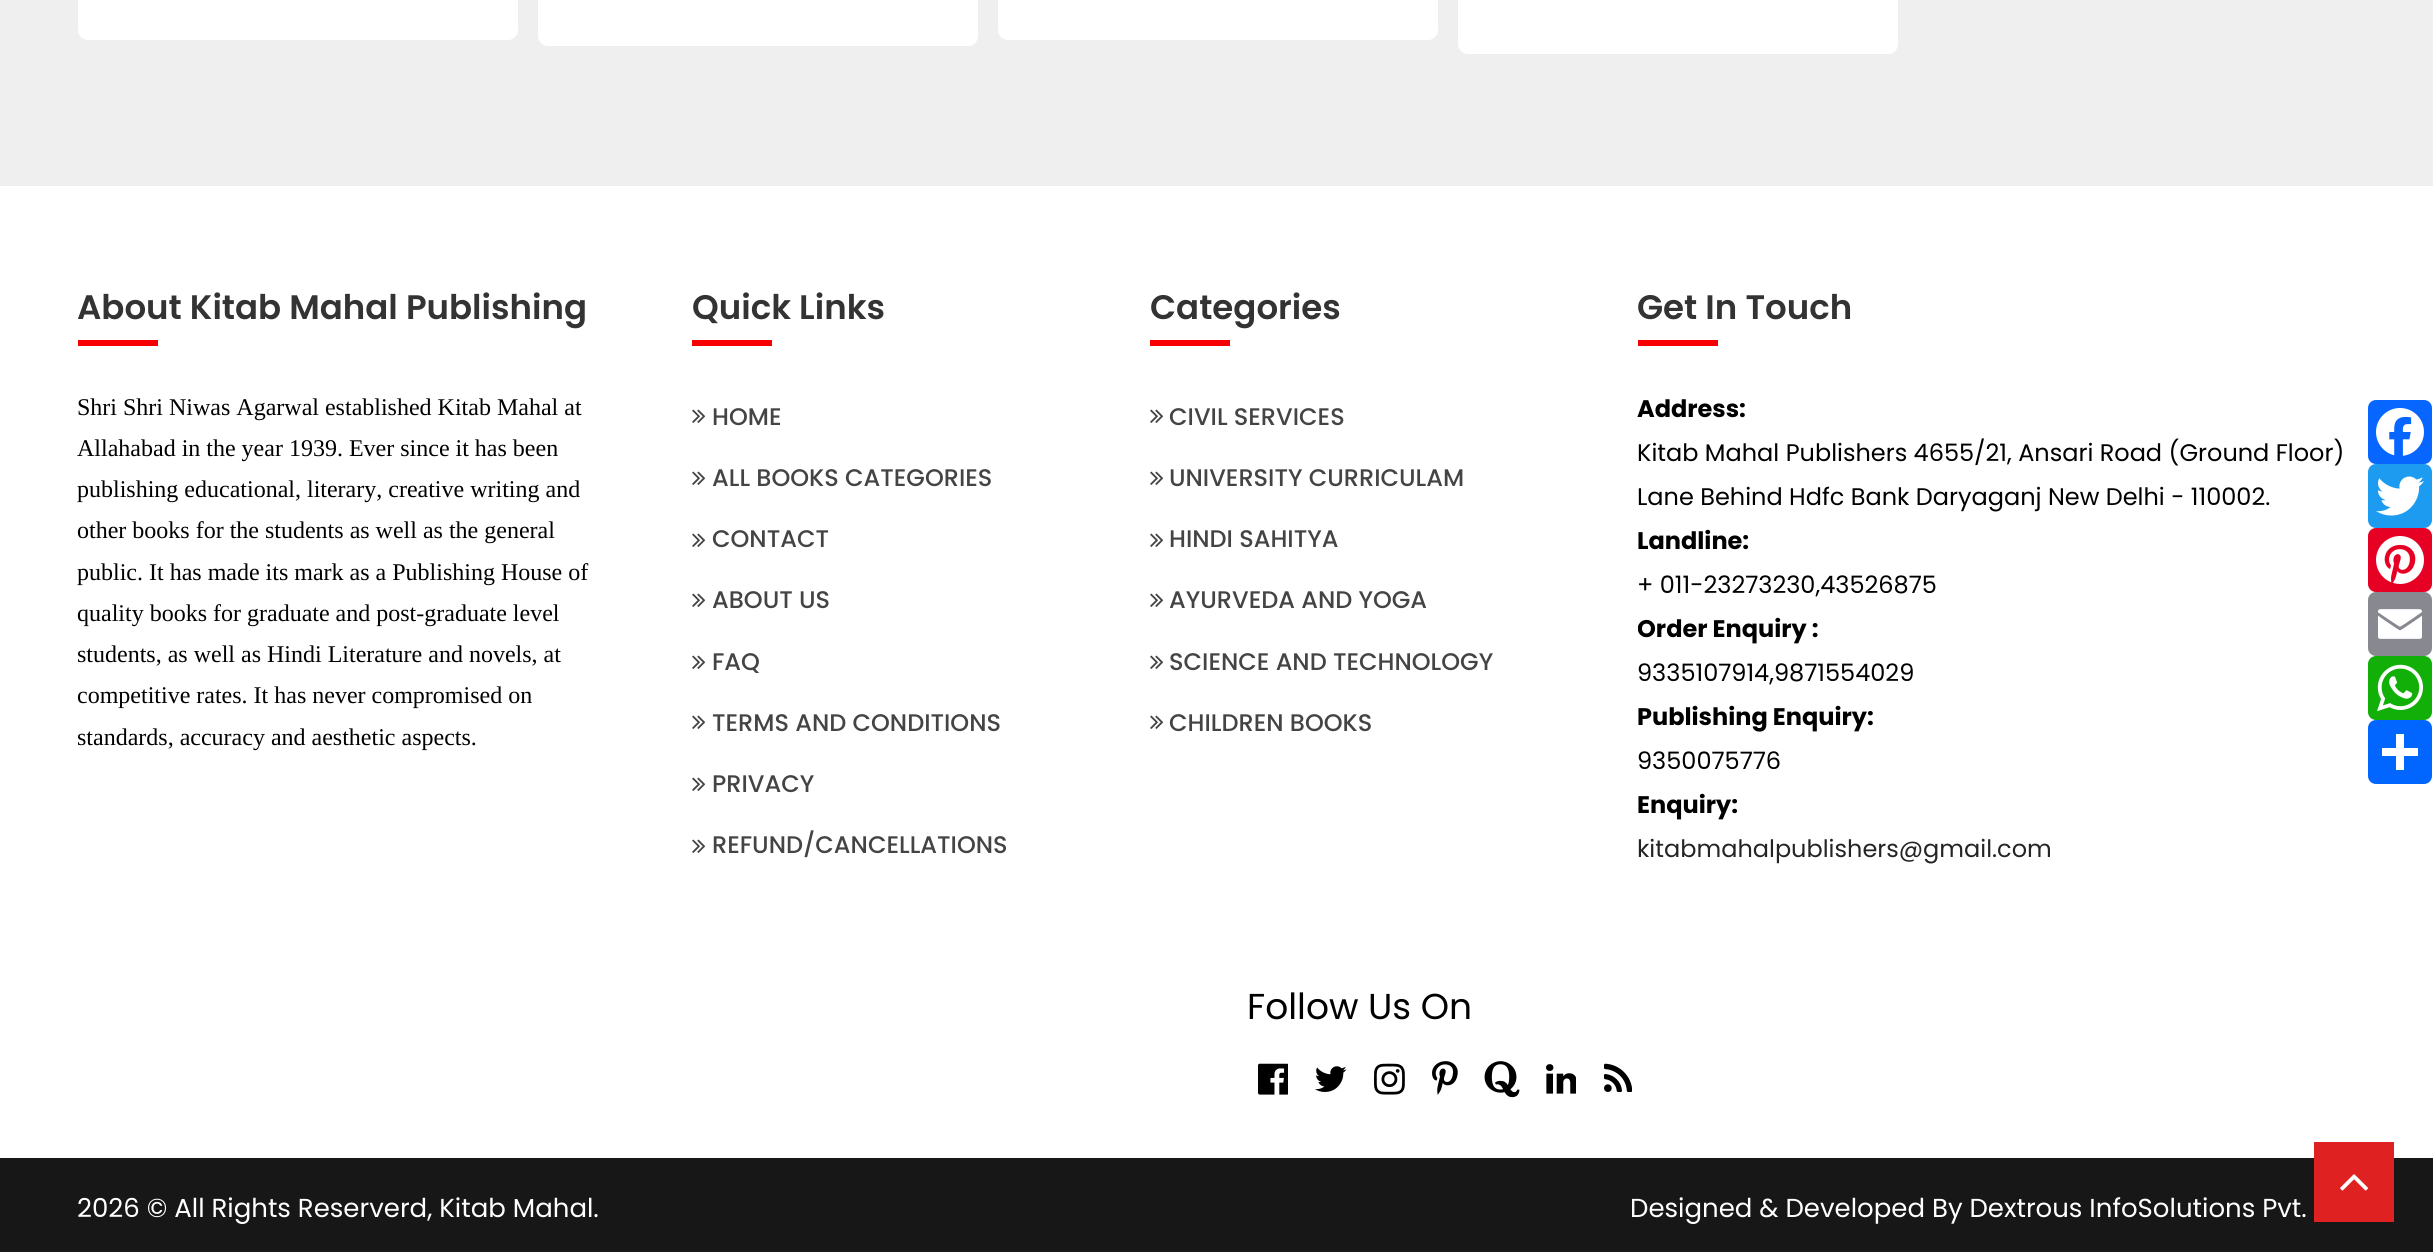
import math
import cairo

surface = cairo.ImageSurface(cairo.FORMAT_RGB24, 2433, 1252)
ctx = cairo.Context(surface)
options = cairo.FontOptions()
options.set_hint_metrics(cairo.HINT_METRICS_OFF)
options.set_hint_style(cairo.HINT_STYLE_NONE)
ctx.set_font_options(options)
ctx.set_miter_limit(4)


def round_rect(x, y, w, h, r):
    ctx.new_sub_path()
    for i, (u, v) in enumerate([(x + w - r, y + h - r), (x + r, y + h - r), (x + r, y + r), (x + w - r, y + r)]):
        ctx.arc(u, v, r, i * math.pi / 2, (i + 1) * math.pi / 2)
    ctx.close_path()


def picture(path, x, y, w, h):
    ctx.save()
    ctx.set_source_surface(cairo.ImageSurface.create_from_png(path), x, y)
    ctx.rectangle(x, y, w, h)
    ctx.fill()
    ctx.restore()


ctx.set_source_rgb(1, 1, 1)
ctx.paint()
ctx.set_source_rgb(0.937, 0.937, 0.937)
ctx.rectangle(0, 0, 2433, 186)
ctx.fill()
ctx.set_source_rgb(1, 1, 1)
round_rect(78, -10, 440, 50, 10)
ctx.fill()
round_rect(538, -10, 440, 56, 10)
ctx.fill()
round_rect(998, -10, 440, 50, 10)
ctx.fill()
round_rect(1458, -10, 440, 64, 10)
ctx.fill()
ctx.select_font_face("Poppins SemiBold")
ctx.set_font_size(34)
ctx.set_source_rgb(0.2, 0.2, 0.2)
ctx.move_to(77, 319)
ctx.show_text("About Kitab Mahal Publishing")
ctx.set_source_rgb(0.965, 0, 0.004)
ctx.rectangle(78, 340, 80, 6)
ctx.fill()
ctx.select_font_face("Liberation Serif")
ctx.set_font_size(24)
ctx.set_source_rgb(0, 0, 0)
ctx.move_to(77, 415)
ctx.show_text("Shri Shri Niwas Agarwal established Kitab Mahal at")
ctx.move_to(77, 456)
ctx.show_text("Allahabad in the year 1939. Ever since it has been")
ctx.move_to(77, 497)
ctx.show_text("publishing educational, literary, creative writing and")
ctx.move_to(77, 538)
ctx.show_text("other books for the students as well as the general")
ctx.move_to(77, 580)
ctx.show_text("public. It has made its mark as a Publishing House of")
ctx.move_to(77, 621)
ctx.show_text("quality books for graduate and post-graduate level")
ctx.move_to(77, 662)
ctx.show_text("students, as well as Hindi Literature and novels, at")
ctx.move_to(77, 703)
ctx.show_text("competitive rates. It has never compromised on")
ctx.move_to(77, 745)
ctx.show_text("standards, accuracy and aesthetic aspects.")
ctx.select_font_face("Poppins SemiBold")
ctx.set_font_size(34)
ctx.set_source_rgb(0.2, 0.2, 0.2)
ctx.move_to(692, 319)
ctx.show_text("Quick Links")
ctx.set_source_rgb(0.965, 0, 0.004)
ctx.rectangle(692, 340, 80, 6)
ctx.fill()
picture("img1.png", 692, 409, 14, 14)
ctx.select_font_face("Poppins Medium")
ctx.set_font_size(24)
ctx.set_source_rgb(0.267, 0.267, 0.267)
ctx.move_to(712, 425)
ctx.show_text("HOME")
picture("img1.png", 692, 471, 14, 14)
ctx.move_to(712, 486)
ctx.show_text("ALL BOOKS CATEGORIES")
picture("img1.png", 692, 533, 14, 14)
ctx.move_to(712, 547)
ctx.show_text("CONTACT")
picture("img1.png", 692, 593, 14, 14)
ctx.move_to(712, 608)
ctx.show_text("ABOUT US")
picture("img1.png", 692, 655, 14, 14)
ctx.move_to(712, 670)
ctx.show_text("FAQ")
picture("img1.png", 692, 715, 14, 14)
ctx.move_to(712, 731)
ctx.show_text("TERMS AND CONDITIONS")
picture("img1.png", 692, 777, 14, 14)
ctx.move_to(712, 792)
ctx.show_text("PRIVACY")
picture("img1.png", 692, 839, 14, 14)
ctx.move_to(712, 853)
ctx.show_text("REFUND/CANCELLATIONS")
ctx.select_font_face("Poppins SemiBold")
ctx.set_font_size(34)
ctx.set_source_rgb(0.2, 0.2, 0.2)
ctx.move_to(1150, 319)
ctx.show_text("Categories")
ctx.set_source_rgb(0.965, 0, 0.004)
ctx.rectangle(1150, 340, 80, 6)
ctx.fill()
picture("img1.png", 1150, 409, 14, 14)
ctx.select_font_face("Poppins Medium")
ctx.set_font_size(24)
ctx.set_source_rgb(0.267, 0.267, 0.267)
ctx.move_to(1169, 425)
ctx.show_text("CIVIL SERVICES")
picture("img1.png", 1150, 471, 14, 14)
ctx.move_to(1169, 486)
ctx.show_text("UNIVERSITY CURRICULAM")
picture("img1.png", 1150, 533, 14, 14)
ctx.move_to(1169, 547)
ctx.show_text("HINDI SAHITYA")
picture("img1.png", 1150, 593, 14, 14)
ctx.move_to(1169, 608)
ctx.show_text("AYURVEDA AND YOGA")
picture("img1.png", 1150, 655, 14, 14)
ctx.move_to(1169, 670)
ctx.show_text("SCIENCE AND TECHNOLOGY")
picture("img1.png", 1150, 715, 14, 14)
ctx.move_to(1169, 731)
ctx.show_text("CHILDREN BOOKS")
ctx.select_font_face("Poppins SemiBold")
ctx.set_font_size(34)
ctx.set_source_rgb(0.2, 0.2, 0.2)
ctx.move_to(1637, 319)
ctx.show_text("Get In Touch")
ctx.set_source_rgb(0.965, 0, 0.004)
ctx.rectangle(1638, 340, 80, 6)
ctx.fill()
ctx.select_font_face("Poppins", cairo.FONT_SLANT_NORMAL, cairo.FONT_WEIGHT_BOLD)
ctx.set_font_size(24)
ctx.set_source_rgb(0, 0, 0)
ctx.move_to(1637, 417)
ctx.show_text("Address:")
ctx.select_font_face("Poppins")
ctx.move_to(1637, 461)
ctx.show_text("Kitab Mahal Publishers 4655/21, Ansari Road (Ground Floor)")
ctx.move_to(1637, 505)
ctx.show_text("Lane Behind Hdfc Bank Daryaganj New Delhi - 110002.")
ctx.select_font_face("Poppins", cairo.FONT_SLANT_NORMAL, cairo.FONT_WEIGHT_BOLD)
ctx.move_to(1637, 549)
ctx.show_text("Landline:")
ctx.select_font_face("Poppins")
ctx.move_to(1637, 593)
ctx.show_text("+ 011-23273230,43526875")
ctx.save()
ctx.rectangle(1638, 606, 720, 88)
ctx.clip()
ctx.select_font_face("Poppins", cairo.FONT_SLANT_NORMAL, cairo.FONT_WEIGHT_BOLD)
ctx.move_to(1637, 637)
ctx.show_text("Order Enquiry :")
ctx.restore()
ctx.move_to(1637, 681)
ctx.show_text("9335107914,9871554029")
ctx.select_font_face("Poppins", cairo.FONT_SLANT_NORMAL, cairo.FONT_WEIGHT_BOLD)
ctx.move_to(1637, 725)
ctx.show_text("Publishing Enquiry:")
ctx.select_font_face("Poppins")
ctx.move_to(1637, 769)
ctx.show_text("9350075776")
ctx.select_font_face("Poppins", cairo.FONT_SLANT_NORMAL, cairo.FONT_WEIGHT_BOLD)
ctx.move_to(1637, 813)
ctx.show_text("Enquiry:")
ctx.select_font_face("Poppins")
ctx.set_source_rgb(0.141, 0.141, 0.141)
ctx.move_to(1637, 857)
ctx.show_text("kitabmahalpublishers@gmail.com")
ctx.set_font_size(36)
ctx.set_source_rgb(0, 0, 0)
ctx.move_to(1247, 1019)
ctx.show_text("Follow Us On")
picture("img2.png", 1258, 1063, 30, 32)
picture("img3.png", 1315, 1066, 32, 26)
picture("img4.png", 1374, 1063, 31, 32)
picture("img5.png", 1432, 1061, 26, 34)
picture("img6.png", 1484, 1061, 36, 37)
picture("img7.png", 1546, 1064, 30, 30)
picture("img8.png", 1604, 1063, 28, 29)
ctx.set_source_rgb(0.09, 0.09, 0.09)
ctx.rectangle(0, 1158, 2433, 94)
ctx.fill()
ctx.set_font_size(26)
ctx.set_source_rgb(1, 1, 1)
ctx.move_to(77, 1217)
ctx.show_text("2026 © All Rights Reserverd, Kitab Mahal.")
ctx.move_to(1630, 1217)
ctx.show_text("Designed & Developed By Dextrous InfoSolutions Pvt.")
ctx.set_source_rgb(0.031, 0.4, 1)
round_rect(2368, 400, 64, 64, 8)
ctx.fill()
picture("img9.png", 2376, 408, 48, 48)
ctx.set_source_rgb(0.114, 0.608, 0.941)
round_rect(2368, 464, 64, 64, 8)
ctx.fill()
picture("img10.png", 2376, 476, 48, 40)
ctx.set_source_rgb(0.902, 0, 0.137)
round_rect(2368, 528, 64, 64, 8)
ctx.fill()
picture("img11.png", 2376, 536, 48, 48)
ctx.set_source_rgb(0.533, 0.537, 0.565)
round_rect(2368, 592, 64, 64, 8)
ctx.fill()
picture("img12.png", 2378, 609, 44, 30)
ctx.set_source_rgb(0.071, 0.686, 0.039)
round_rect(2368, 656, 64, 64, 8)
ctx.fill()
picture("img13.png", 2377, 664, 46, 48)
ctx.set_source_rgb(0.004, 0.4, 1)
round_rect(2368, 720, 64, 64, 8)
ctx.fill()
ctx.set_source_rgb(1, 1, 1)
ctx.rectangle(2396, 734, 8, 36)
ctx.fill()
ctx.rectangle(2382, 748, 36, 8)
ctx.fill()
ctx.set_source_rgb(0.875, 0.129, 0.129)
ctx.rectangle(2314, 1142, 80, 80)
ctx.fill()
picture("img14.png", 2340, 1174, 28, 17)
surface.write_to_png("page.png")
